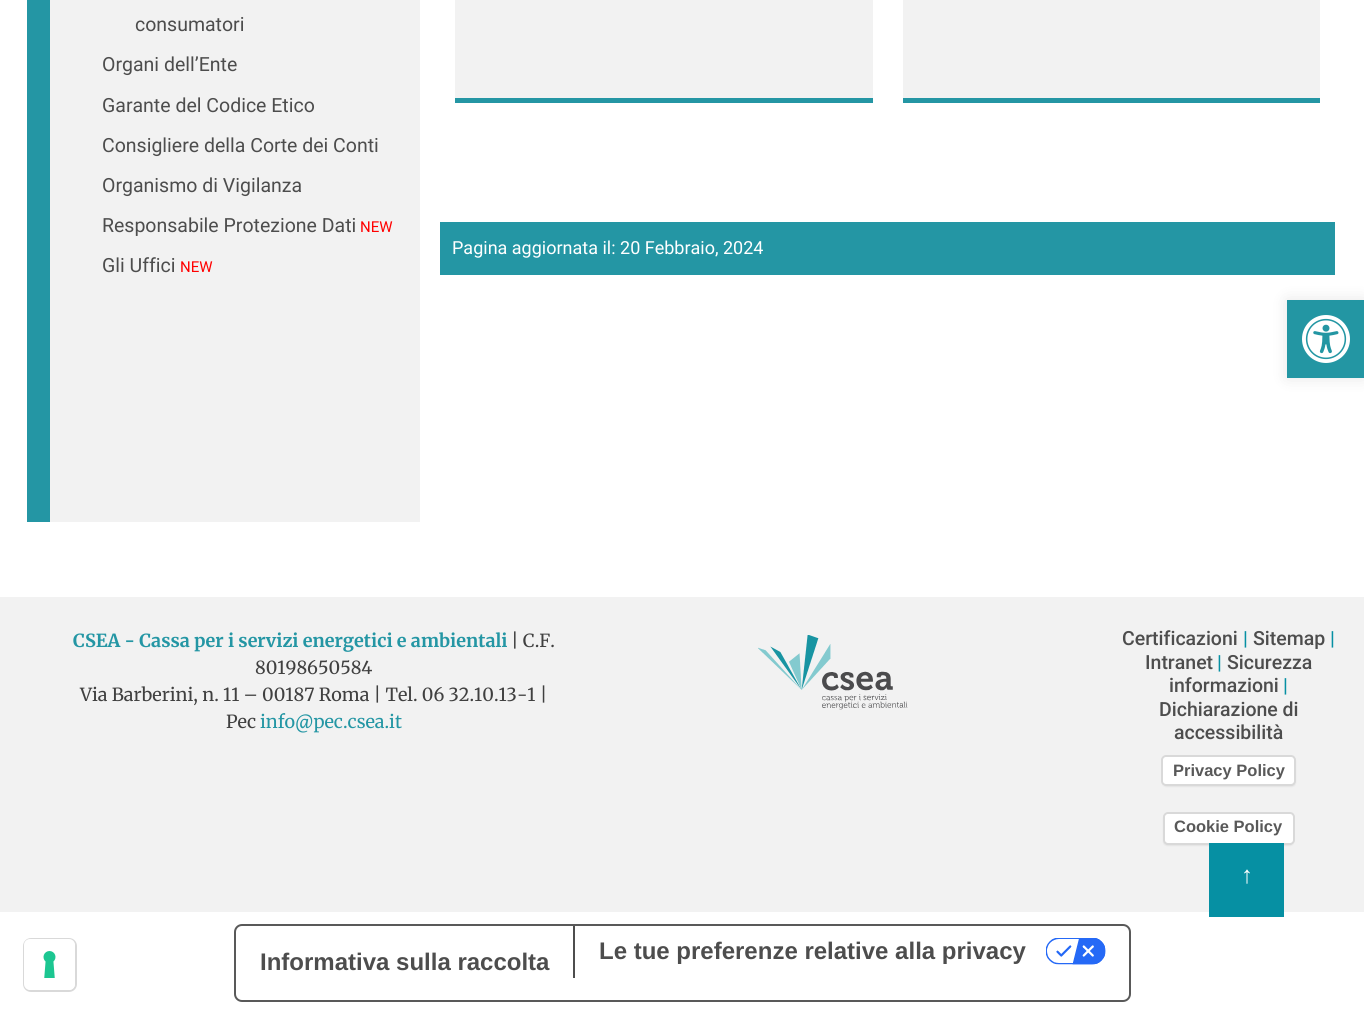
import math
import cairo

surface = cairo.ImageSurface(cairo.FORMAT_RGB24, 1364, 1014)
ctx = cairo.Context(surface)
options = cairo.FontOptions()
options.set_hint_metrics(cairo.HINT_METRICS_OFF)
options.set_hint_style(cairo.HINT_STYLE_NONE)
ctx.set_font_options(options)
ctx.set_miter_limit(4)


def round_rect(x, y, w, h, r):
    ctx.new_sub_path()
    for i, (u, v) in enumerate([(x + w - r, y + h - r), (x + r, y + h - r), (x + r, y + r), (x + w - r, y + r)]):
        ctx.arc(u, v, r, i * math.pi / 2, (i + 1) * math.pi / 2)
    ctx.close_path()


def shadow(x, y, w, h, r, blur, alpha):
    ctx.push_group_with_content(cairo.CONTENT_ALPHA)
    ctx.set_operator(cairo.OPERATOR_SOURCE)
    for i in range(15, -16, -2):
        e = blur * i / 6
        if min(w, h) + 2 * e > 0:
            ctx.set_source_rgba(0, 0, 0, alpha * math.erfc((i - 1) / 8.5) / 2)
            round_rect(x - e, y - e, w + 2 * e, h + 2 * e, max(0, min(r + e + blur * .6, min(w, h) / 2 + e)))
            ctx.fill()
    ctx.mask(ctx.pop_group())


def picture(path, x, y, w, h):
    ctx.save()
    ctx.set_source_surface(cairo.ImageSurface.create_from_png(path), x, y)
    ctx.rectangle(x, y, w, h)
    ctx.fill()
    ctx.restore()


ctx.set_source_rgb(1, 1, 1)
ctx.paint()
ctx.set_source_rgb(0.949, 0.949, 0.949)
ctx.rectangle(50, 0, 370, 522)
ctx.fill()
ctx.set_source_rgb(0.141, 0.588, 0.643)
ctx.rectangle(27, 0, 23, 522)
ctx.fill()
ctx.select_font_face("Roboto")
ctx.set_font_size(19.5)
ctx.set_source_rgb(0.302, 0.302, 0.302)
ctx.move_to(135, 31)
ctx.show_text("consumatori")
ctx.move_to(102, 71)
ctx.show_text("Organi dell’Ente")
ctx.move_to(102, 112)
ctx.show_text("Garante del Codice Etico")
ctx.move_to(102, 152)
ctx.show_text("Consigliere della Corte dei Conti")
ctx.move_to(102, 192)
ctx.show_text("Organismo di Vigilanza")
ctx.move_to(102, 232)
ctx.show_text("Responsabile Protezione Dati")
ctx.set_font_size(15)
ctx.set_source_rgb(1, 0, 0)
ctx.move_to(360, 232)
ctx.show_text("NEW")
ctx.set_font_size(19.5)
ctx.set_source_rgb(0.302, 0.302, 0.302)
ctx.move_to(102, 272)
ctx.show_text("Gli Uffici")
ctx.set_font_size(15)
ctx.set_source_rgb(1, 0, 0)
ctx.move_to(180, 272)
ctx.show_text("NEW")
ctx.set_source_rgb(0.141, 0.588, 0.643)
ctx.rectangle(455, 98, 418, 5)
ctx.fill()
ctx.set_source_rgb(0.949, 0.949, 0.949)
ctx.rectangle(455, 0, 418, 98)
ctx.fill()
ctx.set_source_rgb(0.141, 0.588, 0.643)
ctx.rectangle(903, 98, 417, 5)
ctx.fill()
ctx.set_source_rgb(0.949, 0.949, 0.949)
ctx.rectangle(903, 0, 417, 98)
ctx.fill()
ctx.set_source_rgb(0.141, 0.588, 0.643)
ctx.rectangle(440, 222, 895, 53)
ctx.fill()
ctx.set_font_size(18)
ctx.set_source_rgb(1, 1, 1)
ctx.move_to(452, 254)
ctx.show_text("Pagina aggiornata il: 20 Febbraio, 2024")
ctx.set_source_rgb(0.949, 0.949, 0.949)
ctx.rectangle(0, 597, 1364, 315)
ctx.fill()
ctx.select_font_face("Merriweather", cairo.FONT_SLANT_NORMAL, cairo.FONT_WEIGHT_BOLD)
ctx.set_source_rgb(0.141, 0.588, 0.643)
ctx.move_to(73, 647)
ctx.show_text("CSEA - Cassa per i servizi energetici e ambientali")
ctx.select_font_face("Merriweather")
ctx.set_source_rgb(0.251, 0.251, 0.251)
ctx.move_to(511, 647)
ctx.show_text("| C.F.")
ctx.move_to(255, 674)
ctx.show_text("80198650584")
ctx.move_to(80, 701)
ctx.show_text("Via Barberini, n. 11 – 00187 Roma | Tel. 06 32.10.13-1 |")
ctx.move_to(226, 728)
ctx.show_text("Pec")
ctx.set_source_rgb(0.141, 0.588, 0.643)
ctx.move_to(260, 728)
ctx.show_text("info@pec.csea.it")
picture("img1.png", 758, 635, 150, 75)
ctx.select_font_face("Roboto Medium")
ctx.set_font_size(19.5)
ctx.set_source_rgb(0.302, 0.302, 0.302)
ctx.move_to(1122, 645)
ctx.show_text("Certificazioni")
ctx.set_source_rgb(0.024, 0.565, 0.639)
ctx.move_to(1243, 645)
ctx.show_text("|")
ctx.set_source_rgb(0.302, 0.302, 0.302)
ctx.move_to(1253, 645)
ctx.show_text("Sitemap")
ctx.set_source_rgb(0.024, 0.565, 0.639)
ctx.move_to(1330, 645)
ctx.show_text("|")
ctx.set_source_rgb(0.302, 0.302, 0.302)
ctx.move_to(1145, 669)
ctx.show_text("Intranet")
ctx.set_source_rgb(0.024, 0.565, 0.639)
ctx.move_to(1217, 669)
ctx.show_text("|")
ctx.set_source_rgb(0.302, 0.302, 0.302)
ctx.move_to(1227, 669)
ctx.show_text("Sicurezza")
ctx.move_to(1169, 692)
ctx.show_text("informazioni")
ctx.set_source_rgb(0.024, 0.565, 0.639)
ctx.move_to(1283, 692)
ctx.show_text("|")
ctx.set_source_rgb(0.302, 0.302, 0.302)
ctx.move_to(1159, 716)
ctx.show_text("Dichiarazione di")
ctx.move_to(1174, 739)
ctx.show_text("accessibilità")
ctx.set_source_rgb(0, 0, 0)
shadow(1163, 758, 132, 28, 3, 1, 0.15)
ctx.set_source_rgb(1, 1, 1)
round_rect(1161, 755, 135, 31, 5)
ctx.fill()
round_rect(1162, 756, 133, 29, 4)
ctx.set_source_rgba(0, 0, 0, 0.15)
ctx.stroke()
ctx.select_font_face("Liberation Sans", cairo.FONT_SLANT_NORMAL, cairo.FONT_WEIGHT_BOLD)
ctx.set_font_size(16.5)
ctx.set_source_rgb(0.349, 0.349, 0.349)
ctx.move_to(1173, 776)
ctx.show_text("Privacy Policy")
ctx.set_source_rgb(0, 0, 0)
shadow(1164, 815, 129, 30, 3, 1, 0.15)
ctx.set_source_rgb(1, 1, 1)
round_rect(1163, 812, 132, 33, 5)
ctx.fill()
round_rect(1164, 813, 130, 31, 4)
ctx.set_source_rgba(0, 0, 0, 0.15)
ctx.stroke()
ctx.set_source_rgb(0.349, 0.349, 0.349)
ctx.move_to(1174, 832)
ctx.show_text("Cookie Policy")
ctx.set_source_rgb(0.024, 0.565, 0.639)
ctx.rectangle(1209, 843, 75, 74)
ctx.fill()
ctx.select_font_face("Liberation Serif")
ctx.set_font_size(24)
ctx.set_source_rgb(1, 1, 1)
ctx.move_to(1241, 883)
ctx.show_text("↑")
ctx.set_source_rgb(0, 0, 0)
shadow(1287, 300, 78, 78, 0, 7.5, 0.1)
ctx.set_source_rgb(0.137, 0.588, 0.639)
ctx.rectangle(1287, 300, 77, 78)
ctx.fill()
picture("img2.png", 1302, 315, 48, 48)
round_rect(24, 939, 52, 52, 7)
ctx.set_source_rgb(0.851, 0.851, 0.851)
ctx.stroke()
ctx.set_source_rgb(1, 1, 1)
round_rect(24, 939, 51, 51, 6)
ctx.fill()
picture("img3.png", 43, 951, 13, 27)
round_rect(235, 925, 895, 76, 7)
ctx.set_source_rgb(0.349, 0.349, 0.349)
ctx.stroke()
ctx.select_font_face("Liberation Sans", cairo.FONT_SLANT_NORMAL, cairo.FONT_WEIGHT_BOLD)
ctx.set_source_rgb(0.302, 0.302, 0.302)
ctx.move_to(260, 970)
ctx.show_text("Informativa sulla raccolta")
ctx.rectangle(573, 926, 2, 52)
ctx.fill()
ctx.move_to(599, 959)
ctx.show_text("Le tue preferenze relative alla privacy")
picture("img4.png", 1046, 938, 60, 27)
surface.write_to_png("page.png")
